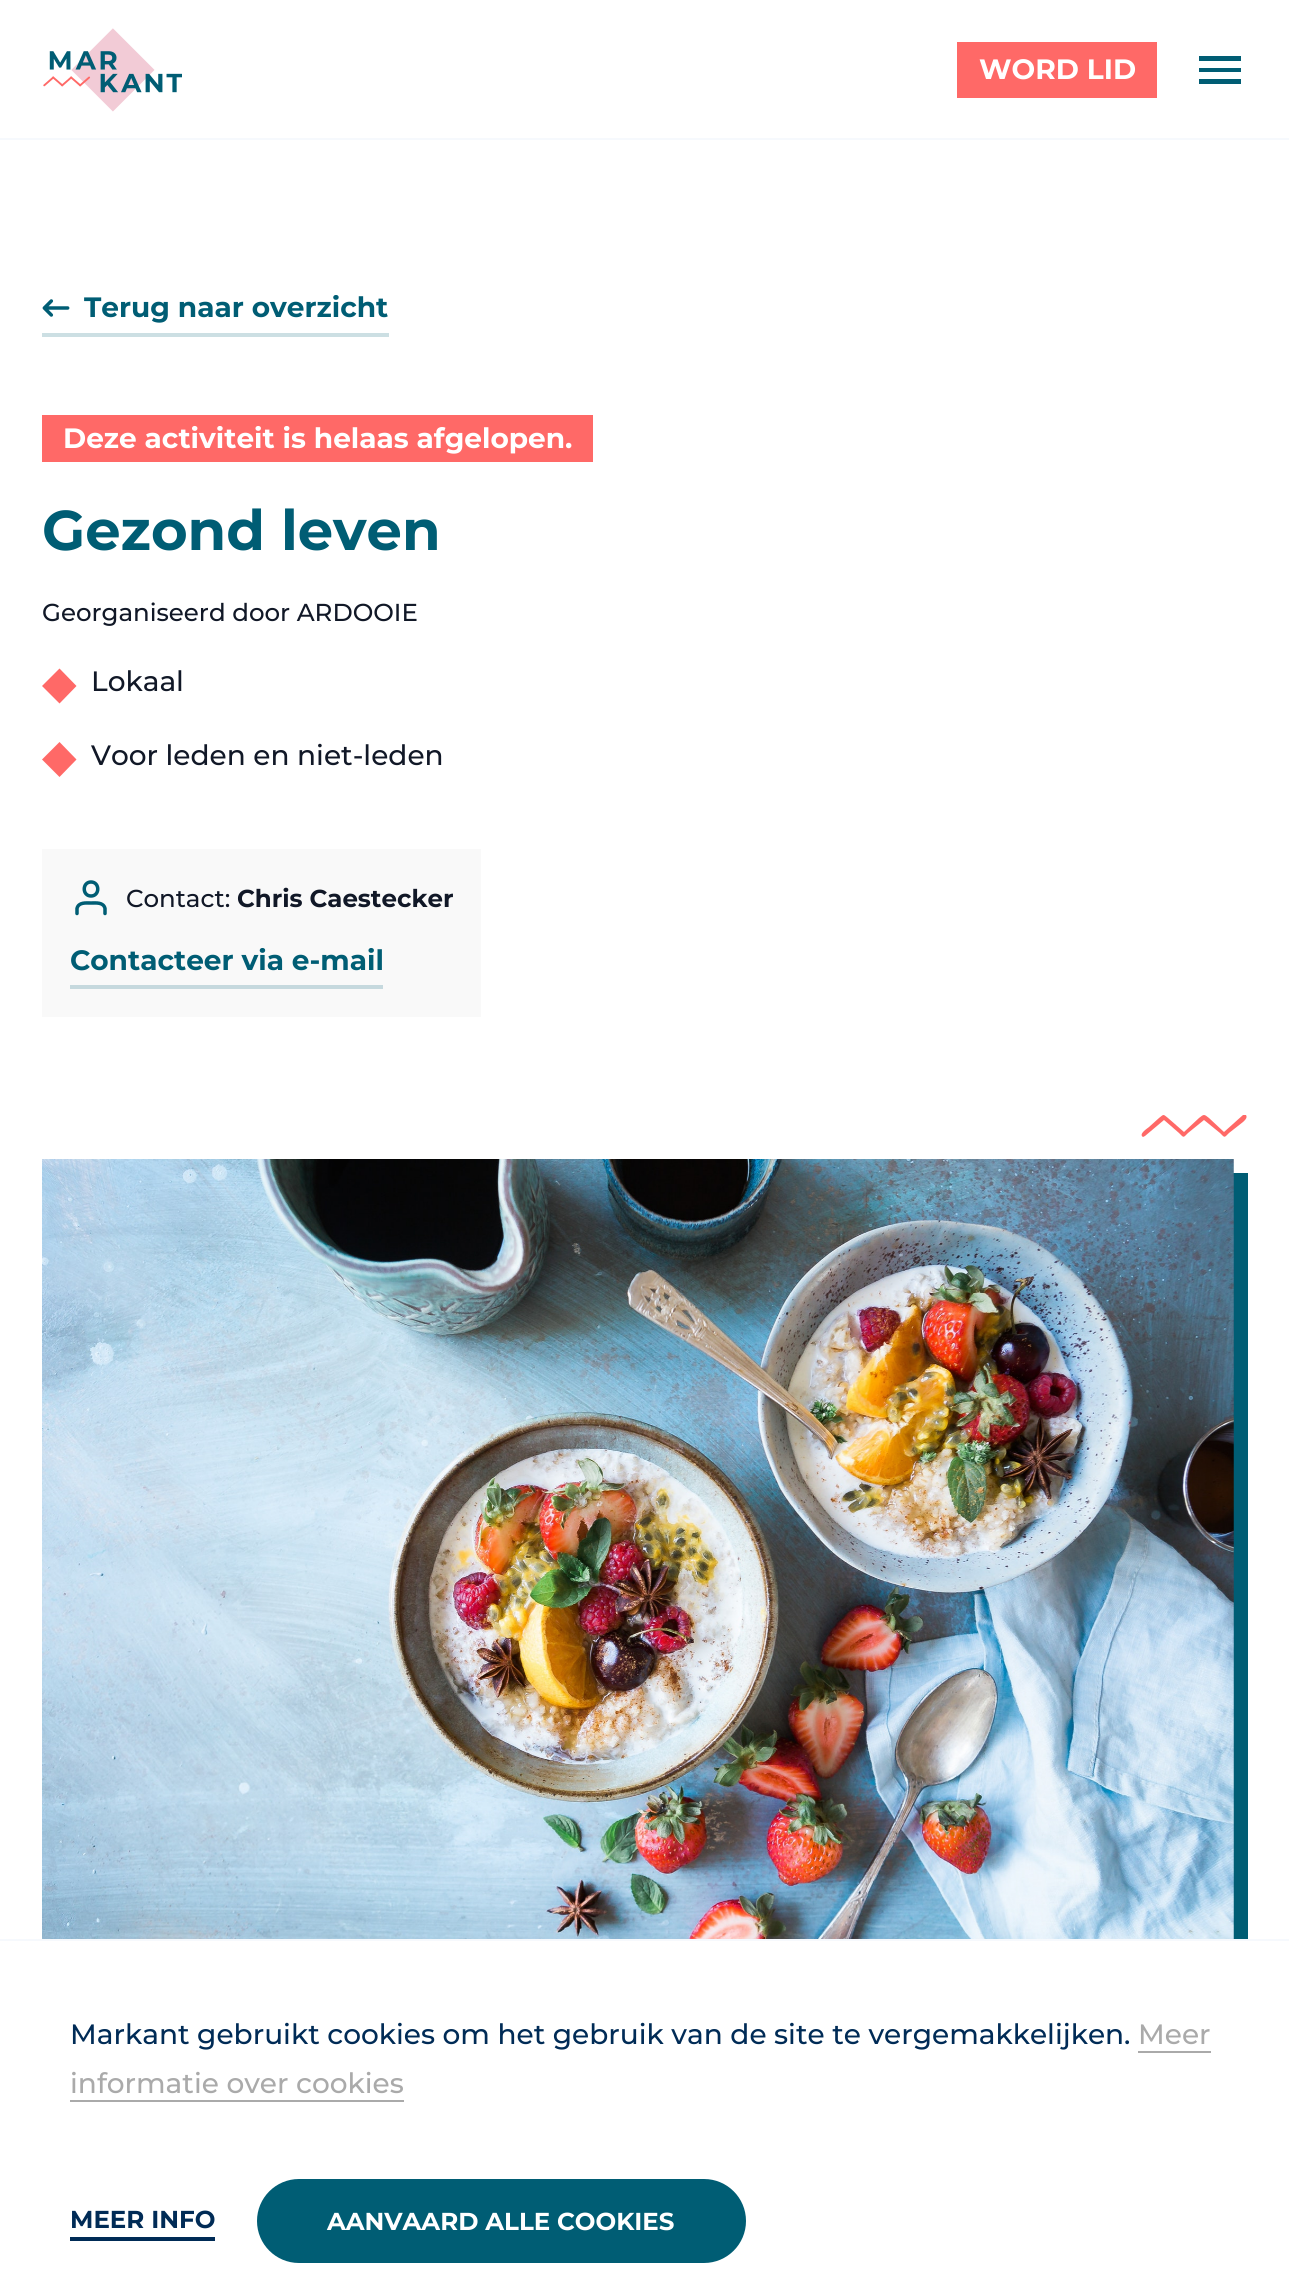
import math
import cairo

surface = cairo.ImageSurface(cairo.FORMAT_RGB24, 1289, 2290)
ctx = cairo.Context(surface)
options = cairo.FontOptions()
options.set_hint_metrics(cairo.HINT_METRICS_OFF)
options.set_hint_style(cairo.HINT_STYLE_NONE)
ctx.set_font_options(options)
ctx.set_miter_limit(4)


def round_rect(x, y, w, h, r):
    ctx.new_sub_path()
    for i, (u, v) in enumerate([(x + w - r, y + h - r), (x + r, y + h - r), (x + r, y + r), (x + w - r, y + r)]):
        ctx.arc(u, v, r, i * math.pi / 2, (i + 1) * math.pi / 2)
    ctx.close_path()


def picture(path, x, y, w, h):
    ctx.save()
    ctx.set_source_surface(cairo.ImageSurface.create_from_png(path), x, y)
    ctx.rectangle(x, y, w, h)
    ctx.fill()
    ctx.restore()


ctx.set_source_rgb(1, 1, 1)
ctx.paint()
ctx.set_source_rgb(0.961, 0.976, 0.992)
ctx.rectangle(0, 138, 1289, 2)
ctx.fill()
picture("img1.png", 43, 28, 139, 84)
ctx.set_source_rgb(1, 0.412, 0.404)
ctx.rectangle(957, 42, 200, 56)
ctx.fill()
ctx.select_font_face("Montserrat", cairo.FONT_SLANT_NORMAL, cairo.FONT_WEIGHT_BOLD)
ctx.set_font_size(28)
ctx.set_source_rgb(1, 1, 1)
ctx.move_to(979, 79)
ctx.show_text("WORD LID")
ctx.set_source_rgb(0, 0.365, 0.455)
ctx.rectangle(1199, 56, 42, 5)
ctx.fill()
ctx.rectangle(1199, 68, 42, 4)
ctx.fill()
ctx.rectangle(1199, 79, 42, 5)
ctx.fill()
picture("img2.png", 42, 299, 28, 18)
ctx.move_to(84, 317)
ctx.show_text("Terug naar overzicht")
ctx.set_source_rgb(0.8, 0.875, 0.89)
ctx.rectangle(42, 333, 347, 4)
ctx.fill()
ctx.set_source_rgb(1, 0.412, 0.404)
ctx.rectangle(42, 415, 551, 47)
ctx.fill()
ctx.set_source_rgb(1, 1, 1)
ctx.move_to(63, 448)
ctx.show_text("Deze activiteit is helaas afgelopen.")
ctx.set_font_size(56)
ctx.set_source_rgb(0, 0.365, 0.455)
ctx.move_to(42, 550)
ctx.show_text("Gezond leven")
ctx.select_font_face("Montserrat Medium")
ctx.set_font_size(24.5)
ctx.set_source_rgb(0.067, 0.094, 0.153)
ctx.move_to(42, 621)
ctx.show_text("Georganiseerd door ARDOOIE")
ctx.set_source_rgb(1, 0.412, 0.404)
ctx.new_path()
ctx.move_to(42, 686)
ctx.line_to(59.5, 668.5)
ctx.line_to(76.5, 686)
ctx.line_to(59.5, 703.5)
ctx.close_path()
ctx.fill()
ctx.set_font_size(28)
ctx.set_source_rgb(0.067, 0.094, 0.153)
ctx.move_to(91, 691)
ctx.show_text("Lokaal")
ctx.set_source_rgb(1, 0.412, 0.404)
ctx.new_path()
ctx.move_to(42, 759.5)
ctx.line_to(59.5, 742)
ctx.line_to(76.5, 759.5)
ctx.line_to(59.5, 777)
ctx.close_path()
ctx.fill()
ctx.set_source_rgb(0.067, 0.094, 0.153)
ctx.move_to(91, 765)
ctx.show_text("Voor leden en niet-leden")
ctx.set_source_rgb(0.973, 0.973, 0.973)
ctx.rectangle(42, 849, 439, 168)
ctx.fill()
ctx.new_path()
ctx.move_to(105, 913.5)
ctx.line_to(105, 908.5)
ctx.curve_to(103.5, 902, 96, 903, 91, 903)
ctx.curve_to(86, 903, 78.5, 902, 77, 908.5)
ctx.line_to(77, 913.5)
ctx.move_to(91, 896)
ctx.curve_to(100, 896, 100, 882, 91, 882)
ctx.curve_to(82, 882, 82, 896, 91, 896)
ctx.close_path()
ctx.set_source_rgb(0, 0.365, 0.455)
ctx.set_line_width(3.5)
ctx.set_line_cap(cairo.LINE_CAP_ROUND)
ctx.set_line_join(cairo.LINE_JOIN_ROUND)
ctx.stroke()
ctx.set_font_size(24.5)
ctx.set_source_rgb(0.067, 0.094, 0.153)
ctx.move_to(126, 907)
ctx.show_text("Contact:")
ctx.select_font_face("Montserrat", cairo.FONT_SLANT_NORMAL, cairo.FONT_WEIGHT_BOLD)
ctx.move_to(237, 907)
ctx.show_text("Chris Caestecker")
ctx.set_font_size(28)
ctx.set_source_rgb(0, 0.365, 0.455)
ctx.move_to(70, 970)
ctx.show_text("Contacteer via e-mail")
ctx.set_source_rgb(0.776, 0.851, 0.871)
ctx.rectangle(70, 985, 313, 4)
ctx.fill()
ctx.save()
ctx.rectangle(1141, 1115, 107, 23)
ctx.clip()
ctx.set_source_rgb(1, 0.412, 0.404)
ctx.new_path()
ctx.move_to(1246, 1115)
ctx.curve_to(1245, 1115, 1244, 1114, 1243, 1115)
ctx.line_to(1224, 1132)
ctx.line_to(1209, 1118)
ctx.curve_to(1204, 1114, 1204, 1114, 1199, 1118)
ctx.line_to(1184, 1132)
ctx.line_to(1168, 1118)
ctx.curve_to(1163, 1114, 1164, 1114, 1159, 1118)
ctx.line_to(1149, 1127)
ctx.curve_to(1148, 1128, 1138, 1134, 1143, 1137)
ctx.line_to(1145, 1136)
ctx.line_to(1164, 1120)
ctx.line_to(1179, 1133)
ctx.curve_to(1184, 1138, 1183, 1138, 1188, 1133)
ctx.line_to(1204, 1120)
ctx.line_to(1220, 1133)
ctx.curve_to(1225, 1138, 1224, 1138, 1229, 1133)
ctx.line_to(1243, 1122)
ctx.curve_to(1244, 1121, 1248, 1118, 1246, 1115)
ctx.close_path()
ctx.fill()
ctx.restore()
ctx.set_source_rgb(0, 0.365, 0.455)
ctx.rectangle(1233, 1173, 15, 766)
ctx.fill()
picture("img3.png", 42, 1159, 1192, 780)
ctx.set_source_rgb(0.961, 0.976, 0.992)
ctx.rectangle(0, 1939, 1289, 2)
ctx.fill()
ctx.select_font_face("Montserrat Medium")
ctx.set_source_rgb(0, 0.169, 0.337)
ctx.move_to(70, 2044)
ctx.show_text("Markant gebruikt cookies om het gebruik van de site te vergemakkelijken.")
ctx.set_source_rgb(0.667, 0.667, 0.667)
ctx.move_to(1138, 2044)
ctx.show_text("Meer")
ctx.rectangle(1138, 2051, 73, 2)
ctx.fill()
ctx.move_to(70, 2093)
ctx.show_text("informatie over cookies")
ctx.rectangle(70, 2100, 334, 2)
ctx.fill()
ctx.set_source_rgb(0, 0.169, 0.337)
ctx.rectangle(70, 2237, 145, 4)
ctx.fill()
ctx.select_font_face("Montserrat", cairo.FONT_SLANT_NORMAL, cairo.FONT_WEIGHT_BOLD)
ctx.set_font_size(24.5)
ctx.move_to(70, 2228)
ctx.show_text("MEER INFO")
ctx.set_source_rgb(0, 0.365, 0.455)
round_rect(257, 2179, 489, 84, 42)
ctx.fill()
ctx.set_source_rgb(1, 1, 1)
ctx.move_to(327, 2230)
ctx.show_text("AANVAARD ALLE COOKIES")
surface.write_to_png("page.png")
